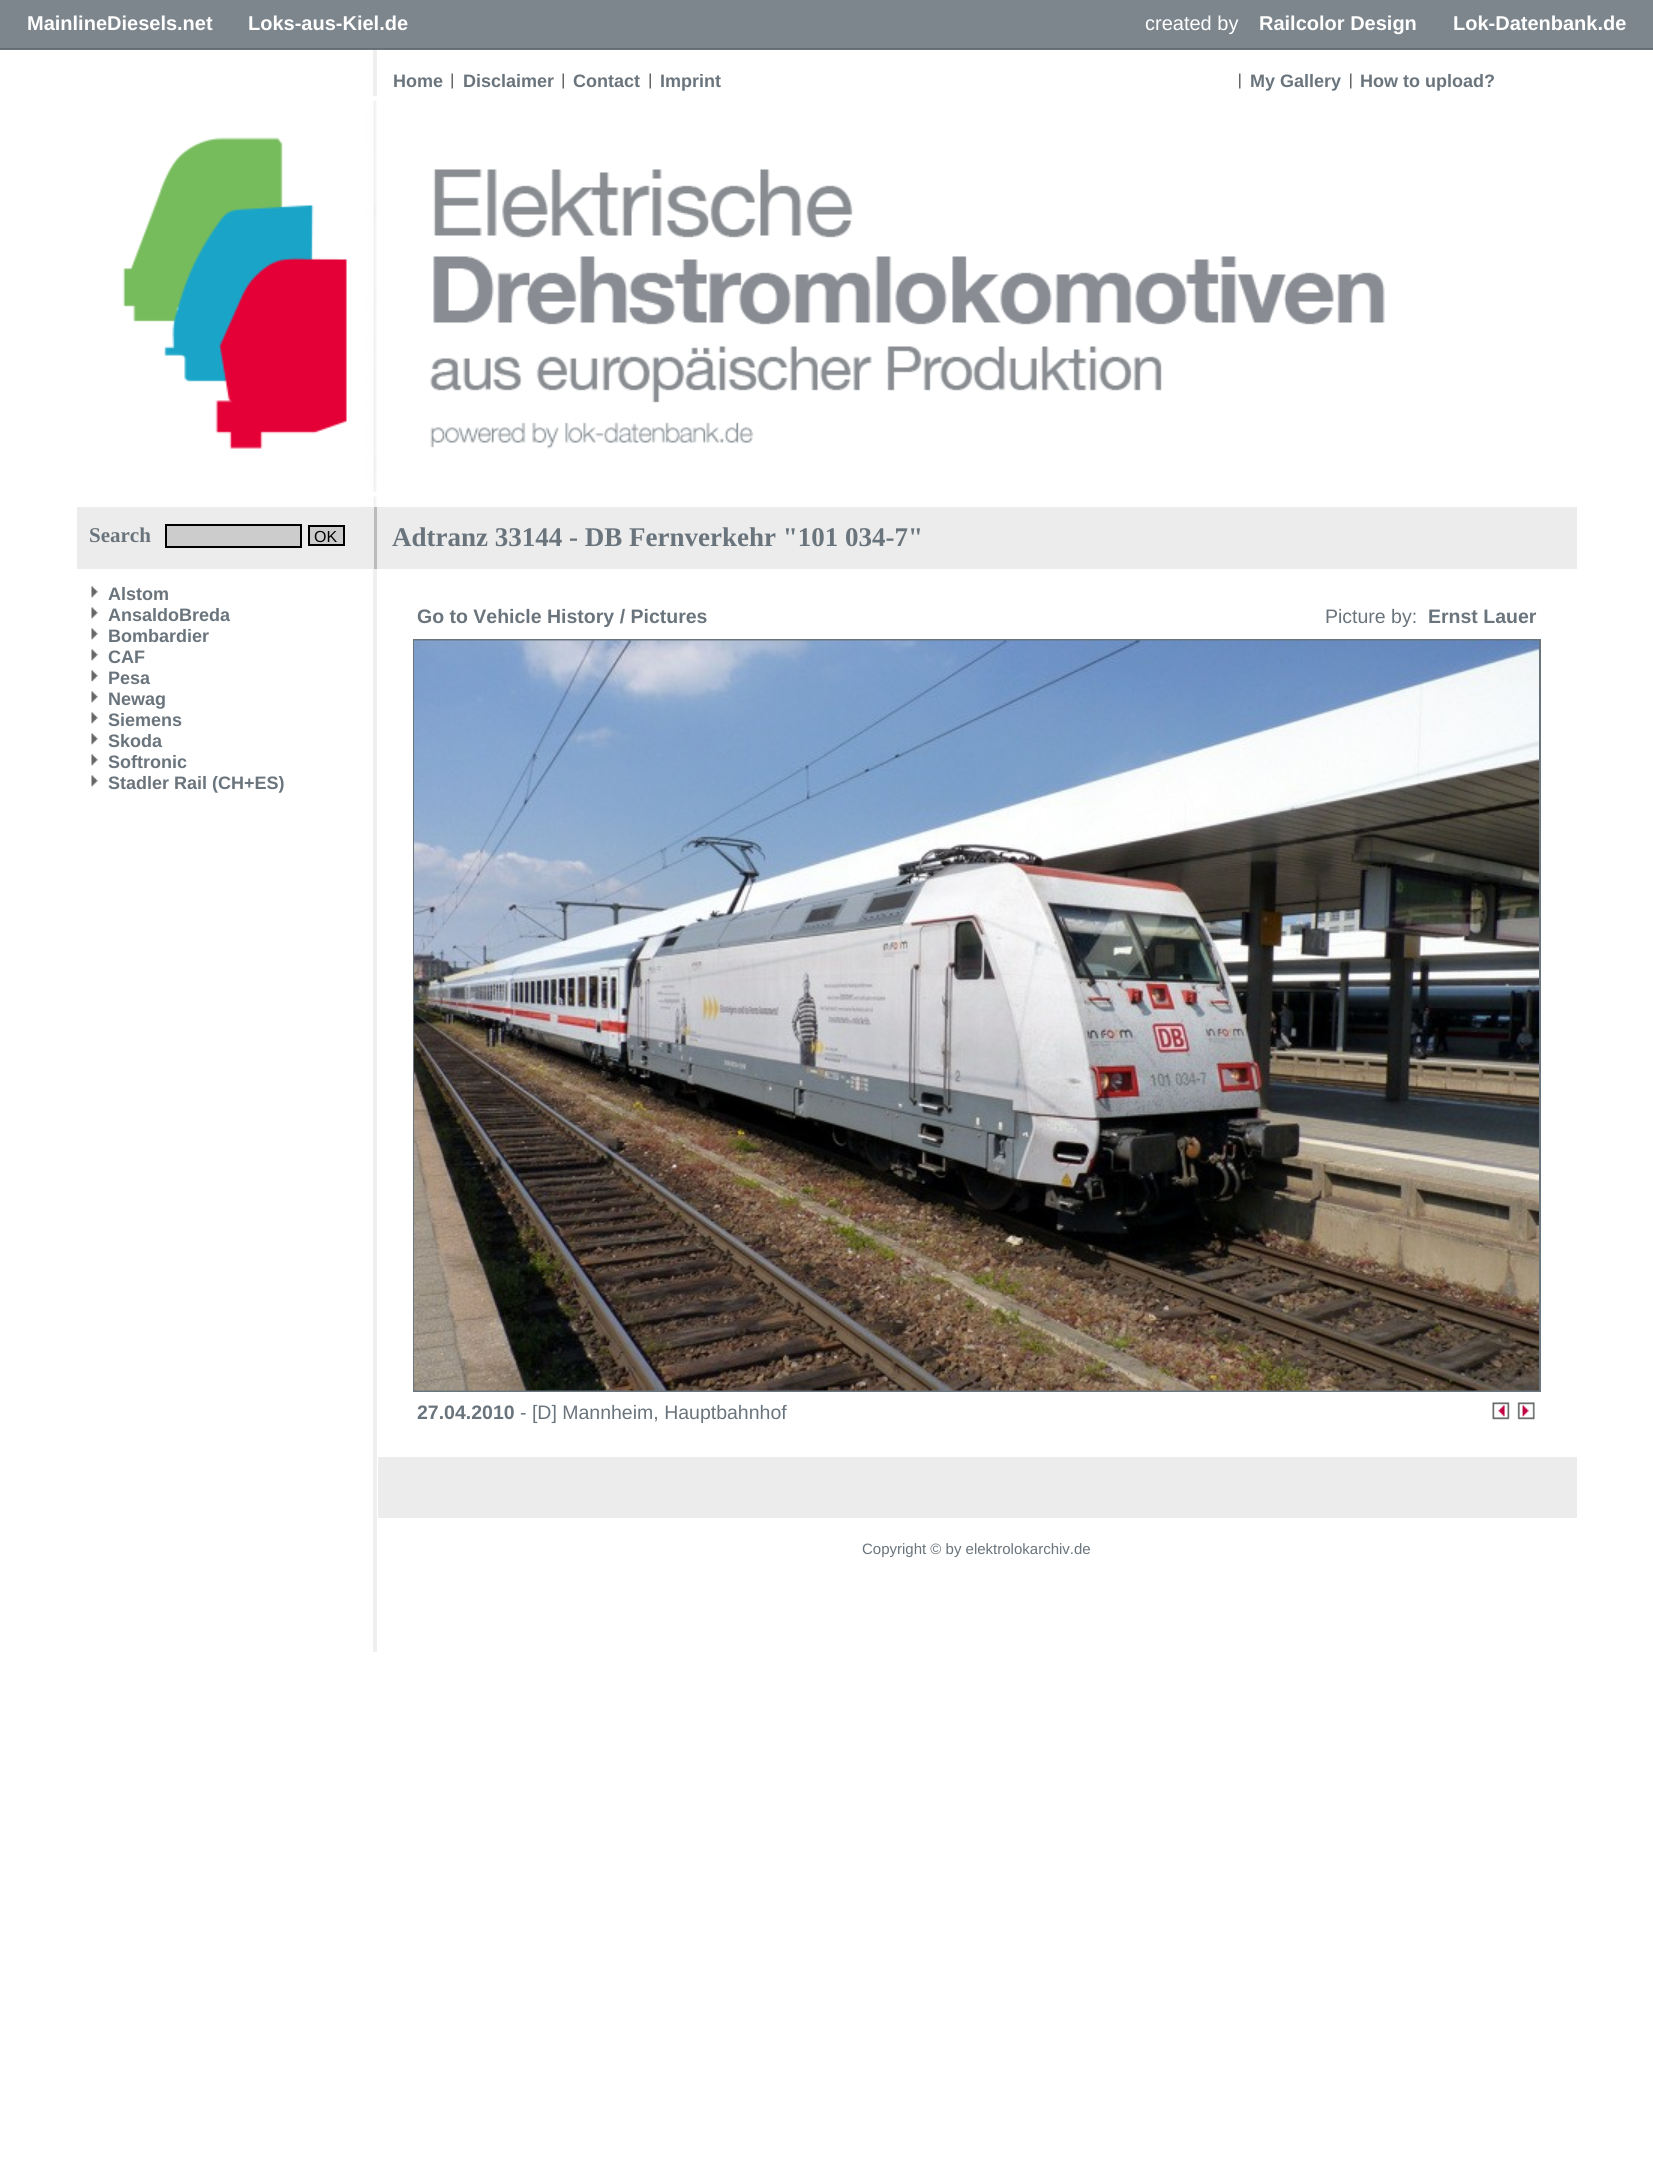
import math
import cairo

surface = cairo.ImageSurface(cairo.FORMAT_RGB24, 1653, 2164)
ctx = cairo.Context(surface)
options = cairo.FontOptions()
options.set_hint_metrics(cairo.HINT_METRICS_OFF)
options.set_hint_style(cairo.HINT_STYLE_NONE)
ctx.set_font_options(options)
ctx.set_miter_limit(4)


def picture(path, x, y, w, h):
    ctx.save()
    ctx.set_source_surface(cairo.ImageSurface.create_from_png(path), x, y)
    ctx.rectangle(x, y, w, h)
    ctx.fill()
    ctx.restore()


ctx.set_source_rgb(1, 1, 1)
ctx.paint()
ctx.set_source_rgb(0.49, 0.525, 0.553)
ctx.rectangle(0, 0, 1653, 50)
ctx.fill()
picture("img1.png", 0, 48, 1653, 2)
ctx.select_font_face("Liberation Sans", cairo.FONT_SLANT_NORMAL, cairo.FONT_WEIGHT_BOLD)
ctx.set_font_size(20)
ctx.set_source_rgb(1, 1, 1)
ctx.move_to(27, 30)
ctx.show_text("MainlineDiesels.net")
ctx.move_to(248, 30)
ctx.show_text("Loks-aus-Kiel.de")
ctx.select_font_face("Liberation Sans")
ctx.move_to(1145, 30)
ctx.show_text("created by")
ctx.select_font_face("Liberation Sans", cairo.FONT_SLANT_NORMAL, cairo.FONT_WEIGHT_BOLD)
ctx.move_to(1259, 30)
ctx.show_text("Railcolor Design")
ctx.move_to(1453, 30)
ctx.show_text("Lok-Datenbank.de")
ctx.set_source_rgb(0.937, 0.937, 0.937)
ctx.rectangle(373, 50, 4, 1602)
ctx.fill()
ctx.set_font_size(18)
ctx.set_source_rgb(0.416, 0.455, 0.486)
ctx.move_to(393, 87)
ctx.show_text("Home")
picture("img2.png", 451, 73, 2, 16)
ctx.move_to(463, 87)
ctx.show_text("Disclaimer")
picture("img2.png", 562, 73, 2, 16)
ctx.move_to(573, 87)
ctx.show_text("Contact")
picture("img2.png", 649, 73, 2, 16)
ctx.move_to(660, 87)
ctx.show_text("Imprint")
picture("img3.png", 1239, 73, 2, 16)
ctx.move_to(1250, 87)
ctx.show_text("My Gallery")
picture("img3.png", 1350, 73, 2, 16)
ctx.move_to(1360, 87)
ctx.show_text("How to upload?")
picture("img4.png", 122, 96, 1263, 411)
ctx.set_source_rgb(0.922, 0.922, 0.922)
ctx.rectangle(77, 507, 297, 62)
ctx.fill()
ctx.set_source_rgb(0.733, 0.733, 0.733)
ctx.rectangle(374, 507, 3, 62)
ctx.fill()
ctx.select_font_face("Liberation Serif", cairo.FONT_SLANT_NORMAL, cairo.FONT_WEIGHT_BOLD)
ctx.set_font_size(21)
ctx.set_source_rgb(0.416, 0.455, 0.486)
ctx.move_to(89, 542)
ctx.show_text("Search")
ctx.set_source_rgb(0.8, 0.8, 0.8)
ctx.rectangle(166, 525, 135, 22)
ctx.fill_preserve()
ctx.set_source_rgb(0, 0, 0)
ctx.stroke()
ctx.set_source_rgb(0.8, 0.8, 0.8)
ctx.rectangle(309, 526, 35, 19)
ctx.fill_preserve()
ctx.set_source_rgb(0, 0, 0)
ctx.stroke()
ctx.select_font_face("Liberation Sans")
ctx.set_font_size(16)
ctx.move_to(314, 542)
ctx.show_text("OK")
picture("img5.png", 91, 586, 7, 12)
ctx.select_font_face("Liberation Sans", cairo.FONT_SLANT_NORMAL, cairo.FONT_WEIGHT_BOLD)
ctx.set_font_size(18)
ctx.set_source_rgb(0.416, 0.455, 0.486)
ctx.move_to(108, 600)
ctx.show_text("Alstom")
picture("img5.png", 91, 607, 7, 12)
ctx.move_to(108, 621)
ctx.show_text("AnsaldoBreda")
picture("img5.png", 91, 628, 7, 12)
ctx.move_to(108, 642)
ctx.show_text("Bombardier")
picture("img5.png", 91, 649, 7, 12)
ctx.move_to(108, 663)
ctx.show_text("CAF")
picture("img5.png", 91, 670, 7, 12)
ctx.move_to(108, 684)
ctx.show_text("Pesa")
picture("img5.png", 91, 691, 7, 12)
ctx.move_to(108, 705)
ctx.show_text("Newag")
picture("img5.png", 91, 712, 7, 12)
ctx.move_to(108, 726)
ctx.show_text("Siemens")
picture("img5.png", 91, 733, 7, 12)
ctx.move_to(108, 747)
ctx.show_text("Skoda")
picture("img5.png", 91, 754, 7, 12)
ctx.move_to(108, 768)
ctx.show_text("Softronic")
picture("img5.png", 91, 775, 7, 12)
ctx.move_to(108, 789)
ctx.show_text("Stadler Rail (CH+ES)")
ctx.set_source_rgb(0.922, 0.922, 0.922)
ctx.rectangle(377, 507, 1200, 62)
ctx.fill()
ctx.select_font_face("Liberation Serif", cairo.FONT_SLANT_NORMAL, cairo.FONT_WEIGHT_BOLD)
ctx.set_font_size(27)
ctx.set_source_rgb(0.416, 0.455, 0.486)
ctx.move_to(392, 546)
ctx.show_text("Adtranz 33144 - DB Fernverkehr \"101 034-7\"")
ctx.select_font_face("Liberation Sans", cairo.FONT_SLANT_NORMAL, cairo.FONT_WEIGHT_BOLD)
ctx.set_font_size(19.5)
ctx.move_to(417, 623)
ctx.show_text("Go to Vehicle History / Pictures")
ctx.select_font_face("Liberation Sans")
ctx.move_to(1325, 623)
ctx.show_text("Picture by:")
ctx.select_font_face("Liberation Sans", cairo.FONT_SLANT_NORMAL, cairo.FONT_WEIGHT_BOLD)
ctx.move_to(1428, 623)
ctx.show_text("Ernst Lauer")
ctx.rectangle(414, 640, 1126, 751)
ctx.stroke()
picture("img6.png", 414, 640, 1125, 751)
ctx.move_to(417, 1419)
ctx.show_text("27.04.2010")
ctx.select_font_face("Liberation Sans")
ctx.move_to(520, 1419)
ctx.show_text("- [D] Mannheim, Hauptbahnhof")
picture("img7.png", 1492, 1402, 18, 18)
picture("img8.png", 1517, 1402, 18, 18)
ctx.set_source_rgb(0.922, 0.922, 0.922)
ctx.rectangle(378, 1457, 1199, 61)
ctx.fill()
ctx.set_font_size(15)
ctx.set_source_rgb(0.416, 0.455, 0.486)
ctx.move_to(862, 1554)
ctx.show_text("Copyright © by elektrolokarchiv.de")
surface.write_to_png("page.png")
